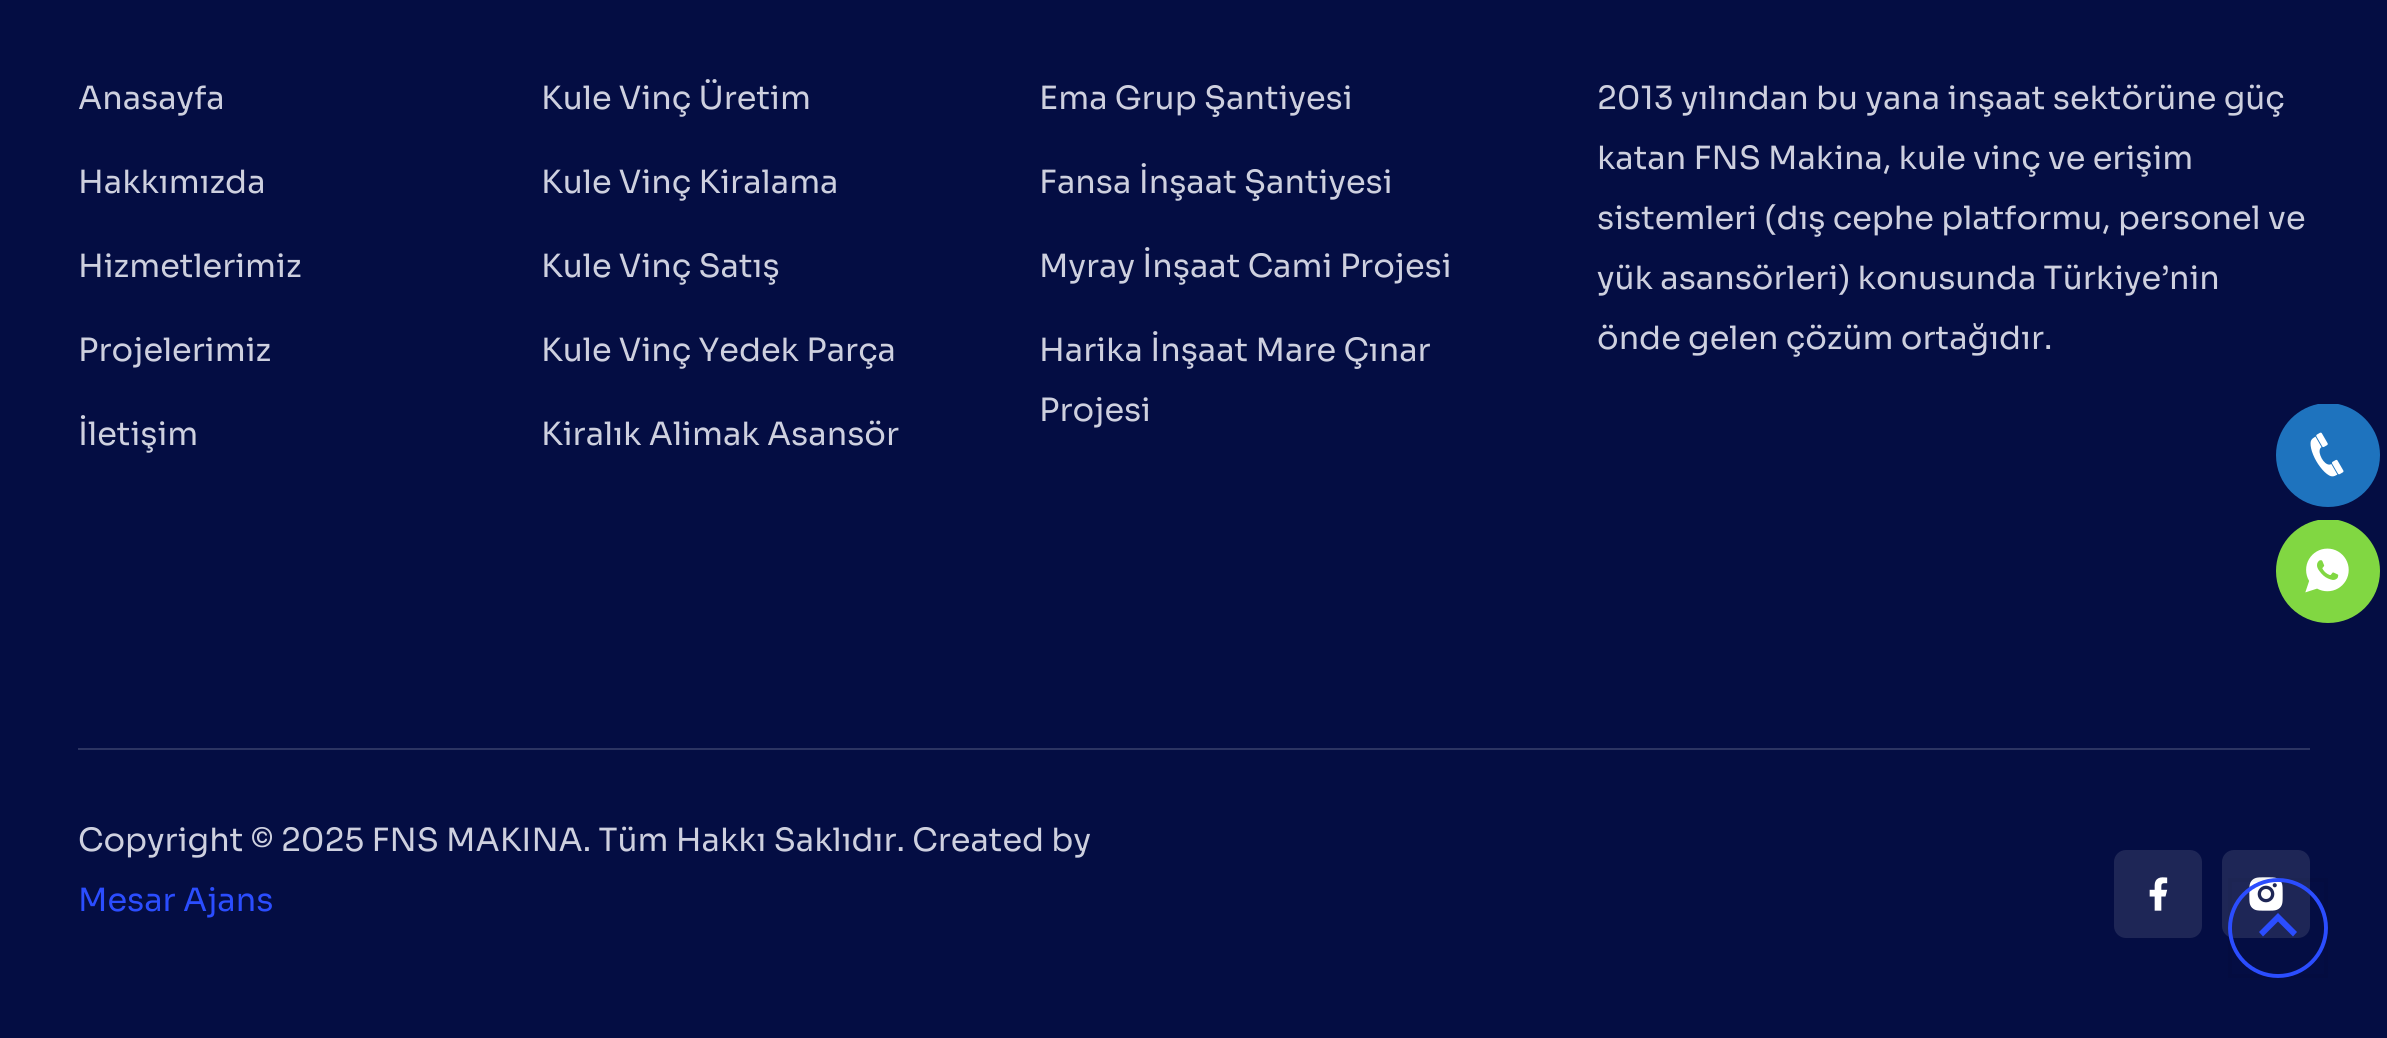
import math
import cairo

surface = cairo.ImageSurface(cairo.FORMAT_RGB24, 2387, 1038)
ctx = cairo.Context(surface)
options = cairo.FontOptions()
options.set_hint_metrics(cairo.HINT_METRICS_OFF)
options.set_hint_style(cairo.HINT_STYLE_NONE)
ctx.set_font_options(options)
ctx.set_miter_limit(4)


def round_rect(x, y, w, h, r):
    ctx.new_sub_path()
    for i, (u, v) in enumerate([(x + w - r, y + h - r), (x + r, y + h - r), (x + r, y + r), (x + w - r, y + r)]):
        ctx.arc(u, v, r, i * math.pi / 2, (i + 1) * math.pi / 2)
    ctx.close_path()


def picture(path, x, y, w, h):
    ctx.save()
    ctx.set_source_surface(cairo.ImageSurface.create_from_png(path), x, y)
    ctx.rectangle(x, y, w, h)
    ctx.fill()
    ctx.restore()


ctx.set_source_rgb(0.016, 0.051, 0.263)
ctx.paint()
ctx.select_font_face("Sora")
ctx.set_font_size(32)
ctx.set_source_rgb(0.808, 0.816, 0.875)
ctx.move_to(78, 109)
ctx.show_text("Anasayfa")
ctx.move_to(78, 193)
ctx.show_text("Hakkımızda")
ctx.move_to(78, 277)
ctx.show_text("Hizmetlerimiz")
ctx.move_to(78, 361)
ctx.show_text("Projelerimiz")
ctx.move_to(78, 445)
ctx.show_text("İletişim")
ctx.move_to(541, 109)
ctx.show_text("Kule Vinç Üretim")
ctx.move_to(541, 193)
ctx.show_text("Kule Vinç Kiralama")
ctx.move_to(541, 277)
ctx.show_text("Kule Vinç Satış")
ctx.move_to(541, 361)
ctx.show_text("Kule Vinç Yedek Parça")
ctx.move_to(541, 445)
ctx.show_text("Kiralık Alimak Asansör")
ctx.move_to(1039, 109)
ctx.show_text("Ema Grup Şantiyesi")
ctx.move_to(1039, 193)
ctx.show_text("Fansa İnşaat Şantiyesi")
ctx.move_to(1039, 277)
ctx.show_text("Myray İnşaat Cami Projesi")
ctx.move_to(1039, 361)
ctx.show_text("Harika İnşaat Mare Çınar")
ctx.move_to(1039, 421)
ctx.show_text("Projesi")
ctx.move_to(1597, 109)
ctx.show_text("2013 yılından bu yana inşaat sektörüne güç")
ctx.move_to(1597, 169)
ctx.show_text("katan FNS Makina, kule vinç ve erişim")
ctx.move_to(1597, 229)
ctx.show_text("sistemleri (dış cephe platformu, personel ve")
ctx.move_to(1597, 289)
ctx.show_text("yük asansörleri) konusunda Türkiye’nin")
ctx.move_to(1597, 349)
ctx.show_text("önde gelen çözüm ortağıdır.")
ctx.set_source_rgb(0.173, 0.204, 0.384)
ctx.rectangle(78, 748, 2232, 2)
ctx.fill()
ctx.set_source_rgb(0.808, 0.816, 0.875)
ctx.move_to(78, 851)
ctx.show_text("Copyright © 2025 FNS MAKINA. Tüm Hakkı Saklıdır. Created by")
ctx.set_source_rgb(0.169, 0.302, 1)
ctx.move_to(78, 911)
ctx.show_text("Mesar Ajans")
ctx.set_source_rgb(0.118, 0.149, 0.337)
round_rect(2114, 850, 88, 88, 12)
ctx.fill()
picture("img1.png", 2149, 877, 19, 34)
round_rect(2222, 850, 88, 88, 12)
ctx.fill()
picture("img2.png", 2249, 877, 34, 34)
ctx.set_source_rgb(0.118, 0.451, 0.745)
ctx.new_path()
ctx.move_to(2338, 404)
ctx.curve_to(2362, 409, 2380, 430, 2380, 455)
ctx.curve_to(2380, 484, 2357, 507, 2328, 507)
ctx.curve_to(2299, 507, 2276, 484, 2276, 455)
ctx.curve_to(2276, 430, 2294, 409, 2318, 404)
ctx.close_path()
ctx.fill()
picture("img3.png", 2310, 432, 34, 45)
ctx.set_source_rgb(0.506, 0.843, 0.259)
ctx.new_path()
ctx.move_to(2338, 520)
ctx.curve_to(2362, 525, 2380, 546, 2380, 571)
ctx.curve_to(2380, 600, 2357, 623, 2328, 623)
ctx.curve_to(2299, 623, 2276, 600, 2276, 571)
ctx.curve_to(2276, 546, 2294, 525, 2318, 520)
ctx.close_path()
ctx.fill()
picture("img4.png", 2305, 548, 44, 45)
ctx.rectangle(2230, 880, 96, 96)
ctx.set_source_rgba(0, 0, 0, 0.04)
ctx.set_line_width(4)
ctx.stroke()
ctx.new_path()
ctx.move_to(2278, 880)
ctx.curve_to(2304.5, 880, 2326, 901.5, 2326, 928)
ctx.curve_to(2326, 954.5, 2304.5, 976, 2278, 976)
ctx.curve_to(2251.5, 976, 2230, 954.5, 2230, 928)
ctx.curve_to(2230, 901.5, 2251.5, 880, 2278, 880)
ctx.set_source_rgb(0.169, 0.302, 1)
ctx.set_line_width(3.9)
ctx.stroke()
ctx.new_path()
ctx.move_to(2278, 921.5)
ctx.line_to(2263, 936.5)
ctx.line_to(2259, 932)
ctx.line_to(2278, 913)
ctx.line_to(2297, 932)
ctx.line_to(2293, 936.5)
ctx.close_path()
ctx.fill()
surface.write_to_png("page.png")
